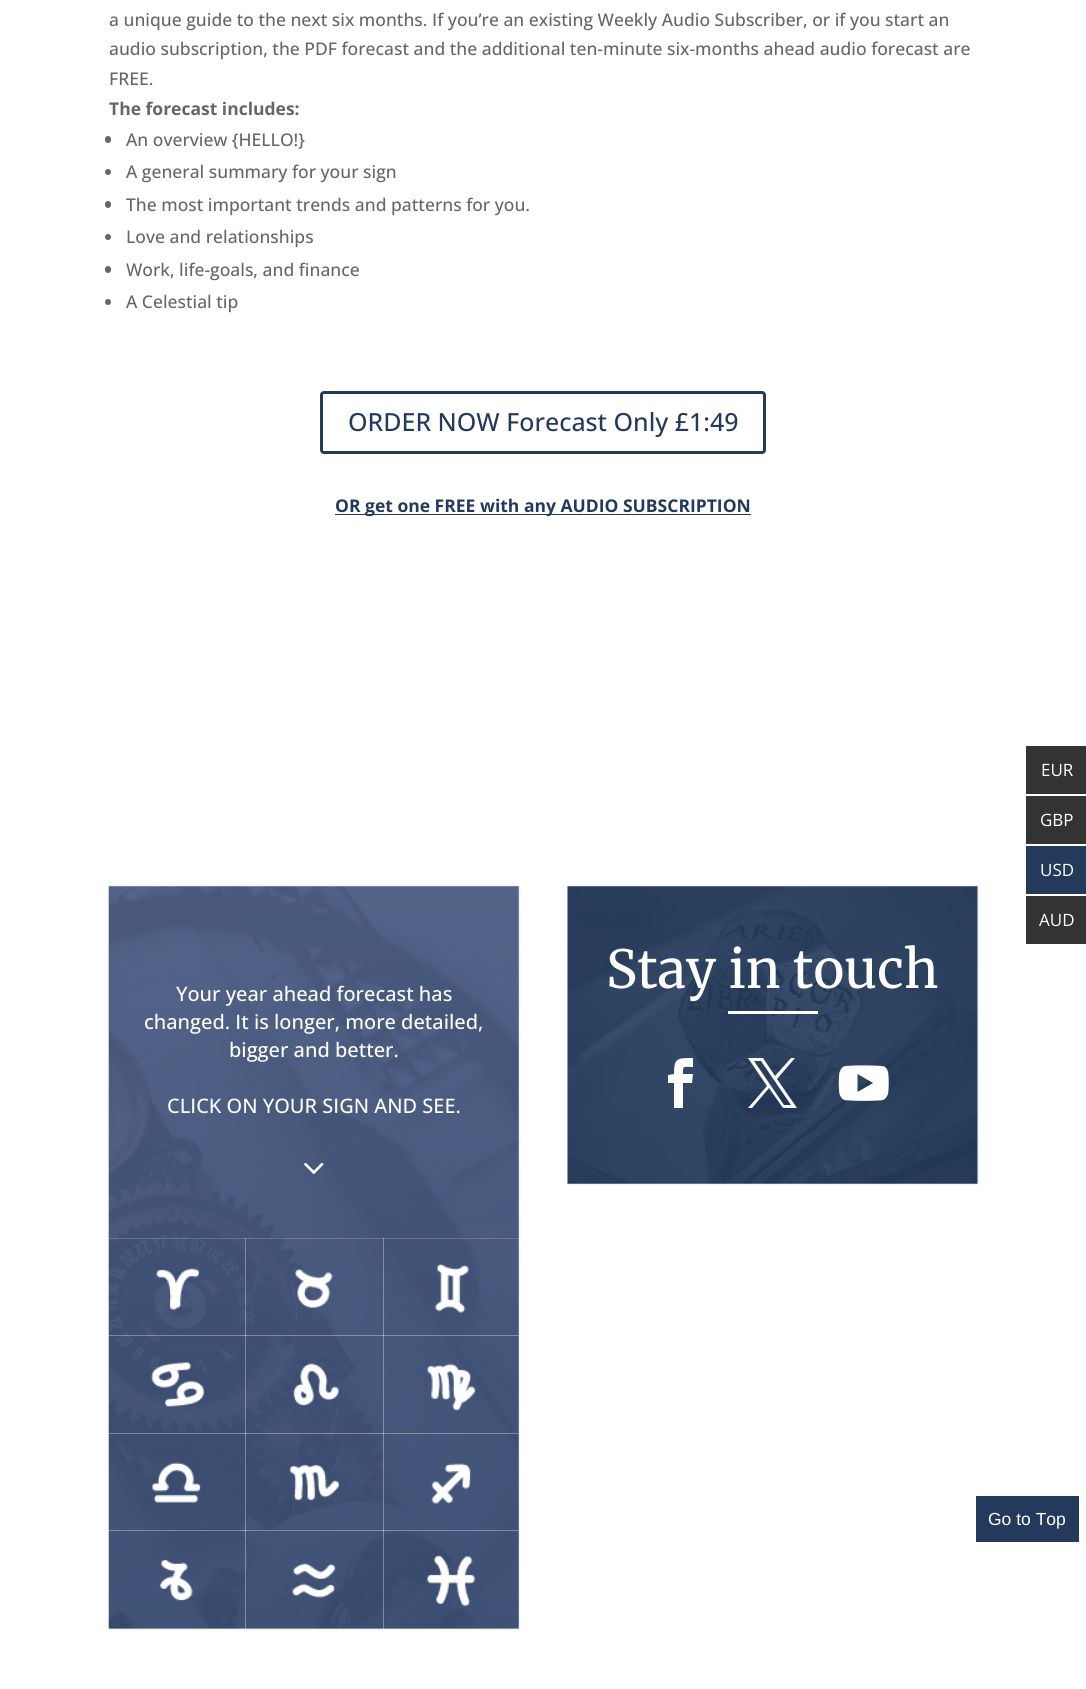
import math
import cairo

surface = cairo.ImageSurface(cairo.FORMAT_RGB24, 1086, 1689)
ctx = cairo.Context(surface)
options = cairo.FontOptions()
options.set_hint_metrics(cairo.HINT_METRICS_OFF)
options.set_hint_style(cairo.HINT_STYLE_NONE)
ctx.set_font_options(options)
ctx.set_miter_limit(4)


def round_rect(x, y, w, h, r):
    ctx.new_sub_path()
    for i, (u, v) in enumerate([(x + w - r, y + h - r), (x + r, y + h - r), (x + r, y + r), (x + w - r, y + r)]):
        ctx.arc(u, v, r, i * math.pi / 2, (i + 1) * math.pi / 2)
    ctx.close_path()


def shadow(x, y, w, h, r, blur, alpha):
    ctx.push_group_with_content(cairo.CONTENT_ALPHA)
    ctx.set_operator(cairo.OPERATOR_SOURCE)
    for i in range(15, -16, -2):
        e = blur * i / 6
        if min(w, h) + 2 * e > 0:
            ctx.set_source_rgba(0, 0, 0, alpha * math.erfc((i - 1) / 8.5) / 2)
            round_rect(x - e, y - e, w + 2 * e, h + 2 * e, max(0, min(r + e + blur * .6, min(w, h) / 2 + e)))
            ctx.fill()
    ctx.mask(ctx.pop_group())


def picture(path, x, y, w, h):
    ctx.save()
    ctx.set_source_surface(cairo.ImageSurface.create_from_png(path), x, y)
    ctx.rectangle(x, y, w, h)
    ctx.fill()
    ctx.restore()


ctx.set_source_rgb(1, 1, 1)
ctx.paint()
ctx.select_font_face("Open Sans Medium")
ctx.set_font_size(17.5)
ctx.set_source_rgb(0.4, 0.4, 0.4)
ctx.move_to(109, 26)
ctx.show_text("a unique guide to the next six months. If you’re an existing Weekly Audio Subscriber, or if you start an")
ctx.move_to(109, 55)
ctx.show_text("audio subscription, the PDF forecast and the additional ten-minute six-months ahead audio forecast are")
ctx.move_to(109, 85)
ctx.show_text("FREE.")
ctx.select_font_face("Open Sans", cairo.FONT_SLANT_NORMAL, cairo.FONT_WEIGHT_BOLD)
ctx.move_to(109, 115)
ctx.show_text("The forecast includes:")
round_rect(105, 136, 6, 7, 3)
ctx.fill()
ctx.select_font_face("Open Sans Medium")
ctx.move_to(126, 146)
ctx.show_text("An overview {HELLO!}")
ctx.new_path()
ctx.arc(108, 172, 3, 0, 2 * math.pi)
ctx.fill()
ctx.move_to(126, 178)
ctx.show_text("A general summary for your sign")
round_rect(105, 201, 6, 7, 3)
ctx.fill()
ctx.move_to(126, 211)
ctx.show_text("The most important trends and patterns for you.")
ctx.new_path()
ctx.arc(108, 237, 3, 0, 2 * math.pi)
ctx.fill()
ctx.move_to(126, 243)
ctx.show_text("Love and relationships")
round_rect(105, 266, 6, 7, 3)
ctx.fill()
ctx.move_to(126, 276)
ctx.show_text("Work, life-goals, and finance")
ctx.new_path()
ctx.arc(108, 302, 3, 0, 2 * math.pi)
ctx.fill()
ctx.move_to(126, 308)
ctx.show_text("A Celestial tip")
round_rect(321.5, 392.5, 443, 60, 2.5)
ctx.set_source_rgb(0.137, 0.227, 0.365)
ctx.set_line_width(3)
ctx.stroke()
ctx.set_font_size(25)
ctx.move_to(348, 431)
ctx.show_text("ORDER NOW Forecast Only £1:49")
ctx.rectangle(335, 514, 416, 1)
ctx.fill()
ctx.select_font_face("Open Sans", cairo.FONT_SLANT_NORMAL, cairo.FONT_WEIGHT_BOLD)
ctx.set_font_size(17.5)
ctx.move_to(335, 512)
ctx.show_text("OR get one FREE with any AUDIO SUBSCRIPTION")
ctx.set_source_rgb(0, 0, 0)
shadow(568, 886, 410, 298, 0, 1, 0.12)
ctx.set_source_rgb(0.976, 0.976, 0.976)
ctx.rectangle(568, 886, 410, 298)
ctx.fill()
picture("img1.png", 567, 886, 411, 298)
ctx.select_font_face("Merriweather Light")
ctx.set_font_size(52.5)
ctx.set_source_rgb(1, 1, 1)
ctx.move_to(606, 988)
ctx.show_text("Stay in touch")
ctx.rectangle(728, 1011, 90, 3)
ctx.fill()
ctx.new_path()
ctx.move_to(674, 1108)
ctx.line_to(683, 1108)
ctx.line_to(683, 1083)
ctx.line_to(692, 1083)
ctx.line_to(693, 1074)
ctx.line_to(683, 1074)
ctx.curve_to(683, 1065, 683, 1067, 693, 1067)
ctx.line_to(693, 1058)
ctx.curve_to(677, 1058, 674, 1058, 674, 1074)
ctx.line_to(668, 1075)
ctx.line_to(668, 1083)
ctx.line_to(674, 1083)
ctx.close_path()
ctx.fill()
ctx.new_path()
ctx.move_to(748, 1058)
ctx.line_to(767, 1086)
ctx.line_to(748, 1108)
ctx.line_to(752, 1108)
ctx.line_to(769, 1088)
ctx.line_to(783, 1108)
ctx.line_to(797, 1108)
ctx.line_to(777, 1079)
ctx.line_to(795, 1058)
ctx.line_to(791, 1058)
ctx.line_to(775, 1076)
ctx.line_to(763, 1058)
ctx.close_path()
ctx.move_to(754, 1061)
ctx.line_to(761, 1061)
ctx.line_to(791, 1105)
ctx.line_to(784, 1105)
ctx.close_path()
ctx.fill()
picture("img2.png", 838, 1065, 51, 36)
ctx.set_source_rgb(0, 0, 0)
shadow(109, 886, 410, 743, 0, 1, 0.12)
picture("img3.png", 108, 886, 411, 743)
ctx.select_font_face("Open Sans Medium")
ctx.set_font_size(20)
ctx.set_source_rgb(1, 1, 1)
ctx.move_to(176, 1001)
ctx.show_text("Your year ahead forecast has")
ctx.move_to(144, 1029)
ctx.show_text("changed. It is longer, more detailed,")
ctx.move_to(229, 1057)
ctx.show_text("bigger and better.")
ctx.move_to(167, 1113)
ctx.show_text("CLICK ON YOUR SIGN AND SEE.")
picture("img4.png", 304, 1162, 20, 13)
ctx.set_source_rgba(1, 1, 1, 0.18)
ctx.rectangle(383, 1238, 137, 1)
ctx.fill()
ctx.rectangle(383, 1335, 137, 1)
ctx.fill()
ctx.rectangle(383, 1433, 137, 1)
ctx.fill()
ctx.rectangle(383, 1530, 137, 1)
ctx.fill()
ctx.rectangle(383, 1628, 137, 1)
ctx.fill()
ctx.rectangle(383, 1530, 1, 99)
ctx.fill()
ctx.rectangle(245, 1530, 139, 1)
ctx.fill()
ctx.rectangle(383, 1530, 1, 99)
ctx.fill()
ctx.rectangle(383, 1530, 137, 1)
ctx.fill()
ctx.rectangle(383, 1433, 1, 98)
ctx.fill()
ctx.rectangle(245, 1433, 139, 1)
ctx.fill()
ctx.rectangle(383, 1433, 1, 98)
ctx.fill()
ctx.rectangle(383, 1433, 137, 1)
ctx.fill()
ctx.rectangle(383, 1335, 1, 99)
ctx.fill()
ctx.rectangle(245, 1335, 139, 1)
ctx.fill()
ctx.rectangle(383, 1335, 1, 99)
ctx.fill()
ctx.rectangle(383, 1335, 137, 1)
ctx.fill()
ctx.rectangle(383, 1238, 1, 98)
ctx.fill()
ctx.rectangle(245, 1238, 139, 1)
ctx.fill()
ctx.rectangle(383, 1238, 1, 98)
ctx.fill()
ctx.rectangle(245, 1628, 139, 1)
ctx.fill()
ctx.rectangle(245, 1530, 1, 99)
ctx.fill()
ctx.rectangle(108, 1530, 138, 1)
ctx.fill()
ctx.rectangle(245, 1530, 1, 99)
ctx.fill()
ctx.rectangle(245, 1530, 139, 1)
ctx.fill()
ctx.rectangle(245, 1433, 1, 98)
ctx.fill()
ctx.rectangle(108, 1433, 138, 1)
ctx.fill()
ctx.rectangle(245, 1433, 1, 98)
ctx.fill()
ctx.rectangle(245, 1433, 139, 1)
ctx.fill()
ctx.rectangle(245, 1335, 1, 99)
ctx.fill()
ctx.rectangle(108, 1335, 138, 1)
ctx.fill()
ctx.rectangle(245, 1335, 1, 99)
ctx.fill()
ctx.rectangle(245, 1335, 139, 1)
ctx.fill()
ctx.rectangle(245, 1238, 1, 98)
ctx.fill()
ctx.rectangle(108, 1238, 138, 1)
ctx.fill()
ctx.rectangle(245, 1238, 1, 98)
ctx.fill()
ctx.rectangle(108, 1335, 138, 1)
ctx.fill()
picture("img5.png", 156, 1268, 43, 43)
picture("img6.png", 294, 1268, 39, 40)
picture("img7.png", 434, 1263, 35, 50)
ctx.rectangle(108, 1433, 138, 1)
ctx.fill()
picture("img8.png", 151, 1362, 53, 45)
picture("img9.png", 293, 1363, 46, 43)
picture("img10.png", 427, 1363, 49, 48)
ctx.rectangle(108, 1530, 138, 1)
ctx.fill()
picture("img11.png", 152, 1462, 49, 41)
picture("img12.png", 289, 1464, 50, 37)
picture("img13.png", 431, 1463, 40, 41)
ctx.rectangle(108, 1628, 138, 1)
ctx.fill()
picture("img14.png", 159, 1559, 34, 42)
picture("img15.png", 292, 1563, 44, 35)
picture("img16.png", 427, 1555, 49, 52)
ctx.set_source_rgb(0.2, 0.2, 0.2)
ctx.rectangle(1026, 746, 60, 48)
ctx.fill()
ctx.select_font_face("Open Sans")
ctx.set_font_size(17)
ctx.set_source_rgb(1, 1, 1)
ctx.move_to(1041, 776)
ctx.show_text("EUR")
ctx.set_source_rgb(0.2, 0.2, 0.2)
ctx.rectangle(1026, 796, 60, 48)
ctx.fill()
ctx.set_source_rgb(1, 1, 1)
ctx.move_to(1040, 826)
ctx.show_text("GBP")
ctx.set_source_rgb(0.137, 0.227, 0.365)
ctx.rectangle(1026, 846, 60, 48)
ctx.fill()
ctx.set_source_rgb(1, 1, 1)
ctx.move_to(1040, 876)
ctx.show_text("USD")
ctx.set_source_rgb(0.2, 0.2, 0.2)
ctx.rectangle(1026, 896, 60, 48)
ctx.fill()
ctx.set_source_rgb(1, 1, 1)
ctx.move_to(1039, 926)
ctx.show_text("AUD")
ctx.set_source_rgb(0.137, 0.227, 0.365)
ctx.rectangle(976, 1496, 103, 46)
ctx.fill()
ctx.select_font_face("Liberation Sans")
ctx.set_font_size(17.5)
ctx.set_source_rgb(1, 1, 1)
ctx.move_to(988, 1525)
ctx.show_text("Go to Top")
surface.write_to_png("page.png")
